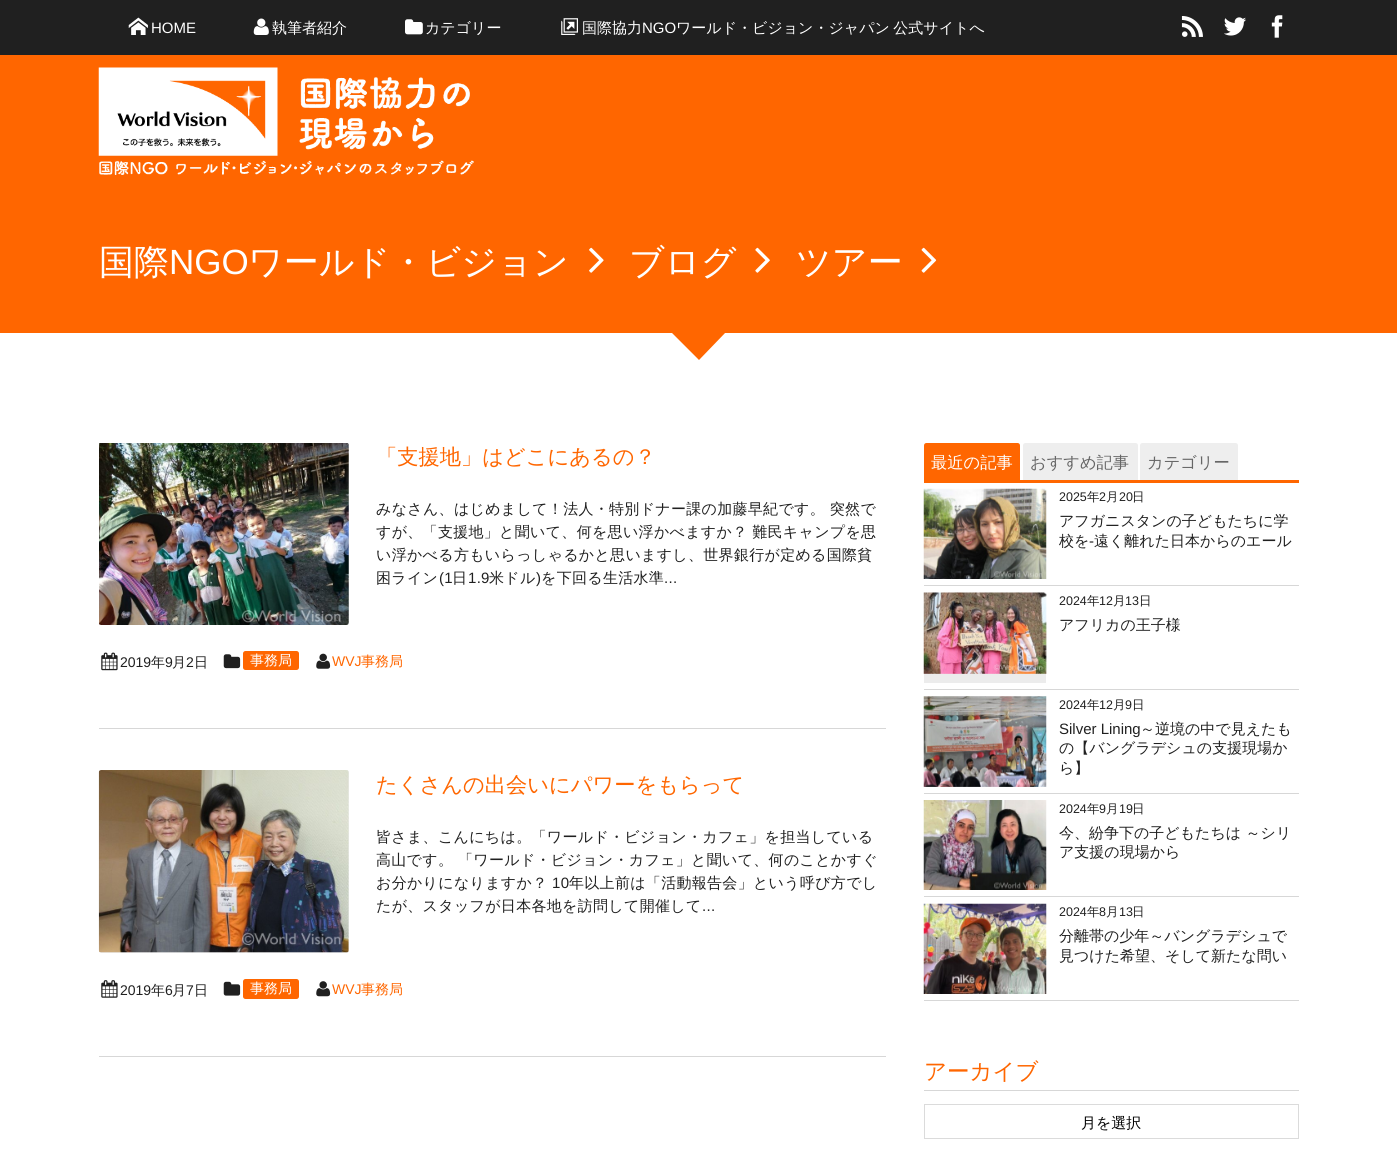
import math
import cairo

surface = cairo.ImageSurface(cairo.FORMAT_RGB24, 1397, 1163)
ctx = cairo.Context(surface)
options = cairo.FontOptions()
options.set_hint_metrics(cairo.HINT_METRICS_OFF)
options.set_hint_style(cairo.HINT_STYLE_NONE)
ctx.set_font_options(options)
ctx.set_miter_limit(4)


def spaced_text(x, y, s, letter, word):
    ctx.move_to(x, y)
    for ch in s:
        ctx.show_text(ch)
        ctx.rel_move_to(letter + word * (ch == ' '), 0)


def round_rect(x, y, w, h, r):
    ctx.new_sub_path()
    for i, (u, v) in enumerate([(x + w - r, y + h - r), (x + r, y + h - r), (x + r, y + r), (x + w - r, y + r)]):
        ctx.arc(u, v, r, i * math.pi / 2, (i + 1) * math.pi / 2)
    ctx.close_path()


def picture(path, x, y, w, h):
    ctx.save()
    ctx.set_source_surface(cairo.ImageSurface.create_from_png(path), x, y)
    ctx.rectangle(x, y, w, h)
    ctx.fill()
    ctx.restore()


ctx.set_source_rgb(1, 1, 1)
ctx.paint()
ctx.set_source_rgb(0.125, 0.125, 0.125)
ctx.rectangle(0, 0, 1397, 55)
ctx.fill()
picture("img1.png", 128, 17, 20, 18)
ctx.select_font_face("Liberation Sans")
ctx.set_font_size(15)
ctx.set_source_rgb(1, 1, 1)
ctx.move_to(151, 33)
ctx.show_text("HOME")
picture("img2.png", 253, 18, 16, 17)
ctx.select_font_face("WenQuanYi Zen Hei Medium")
ctx.move_to(272, 33)
ctx.show_text("執筆者紹介")
picture("img3.png", 405, 19, 18, 16)
ctx.move_to(425, 33)
ctx.show_text("カテゴリー")
picture("img4.png", 561, 18, 17, 17)
ctx.move_to(582, 33)
ctx.show_text("国際協力")
ctx.select_font_face("Liberation Sans")
ctx.move_to(642, 33)
ctx.show_text("NGO")
ctx.select_font_face("WenQuanYi Zen Hei Medium")
spaced_text(676, 33, "ワールド・ビジョン・ジャパン 公式サイトへ", 0, -1)
picture("img5.png", 1181, 16, 22, 21)
picture("img6.png", 1224, 17, 22, 19)
picture("img7.png", 1271, 15, 12, 23)
ctx.set_source_rgb(1, 0.4, 0)
ctx.rectangle(0, 55, 1397, 278)
ctx.fill()
picture("img8.png", 98, 67, 376, 108)
ctx.set_font_size(35)
ctx.set_source_rgb(1, 1, 1)
ctx.move_to(99, 274)
ctx.show_text("国際")
ctx.select_font_face("Liberation Sans")
ctx.move_to(169, 274)
ctx.show_text("NGO")
ctx.select_font_face("WenQuanYi Zen Hei Medium")
ctx.move_to(248, 274)
ctx.show_text("ワールド・ビジョン")
picture("img9.png", 589, 247, 15, 26)
ctx.move_to(629, 274)
ctx.show_text("ブログ")
picture("img10.png", 755, 247, 15, 26)
ctx.move_to(796, 274)
ctx.show_text("ツアー")
picture("img11.png", 921, 247, 16, 26)
ctx.set_source_rgb(1, 0.4, 0)
ctx.new_path()
ctx.move_to(671, 332)
ctx.line_to(726, 332)
ctx.line_to(699, 360)
ctx.close_path()
ctx.fill()
ctx.set_source_rgb(0.843, 0.843, 0.843)
ctx.rectangle(99, 728, 787, 1)
ctx.fill()
ctx.set_source_rgb(0.922, 0.922, 0.922)
round_rect(99, 443, 250, 182, 2.5)
ctx.fill()
picture("img12.png", 99, 443, 250, 182)
ctx.set_font_size(21.25)
ctx.set_source_rgb(1, 0.4, 0)
ctx.move_to(376, 464)
ctx.show_text("「支援地」はどこにあるの？")
ctx.set_font_size(15)
ctx.set_source_rgb(0.125, 0.125, 0.125)
spaced_text(376, 514, "みなさん、はじめまして！法人・特別ドナー課の加藤早紀です。 突然で", 0.3, 0)
spaced_text(376, 537, "すが、「支援地」と聞いて、何を思い浮かべますか？ 難民キャンプを思", 0.3, 0)
spaced_text(376, 560, "い浮かべる方もいらっしゃるかと思いますし、世界銀行が定める国際貧", 0.3, 0)
spaced_text(376, 583, "困ライン", 0.3, 0)
ctx.select_font_face("Liberation Sans")
spaced_text(439, 583, "(1", 0.3, 0)
ctx.select_font_face("WenQuanYi Zen Hei Medium")
spaced_text(452, 583, "日", 0.3, 0)
ctx.select_font_face("Liberation Sans")
spaced_text(468, 583, "1.9", 0.3, 0)
ctx.select_font_face("WenQuanYi Zen Hei Medium")
spaced_text(489, 583, "米ドル", 0.3, 0)
ctx.select_font_face("Liberation Sans")
spaced_text(536, 583, ")", 0.3, 0)
ctx.select_font_face("WenQuanYi Zen Hei Medium")
spaced_text(541, 583, "を下回る生活水準", 0.3, 0)
ctx.select_font_face("Liberation Sans")
spaced_text(664, 583, "...", 0.3, 0)
picture("img13.png", 101, 652, 17, 19)
ctx.set_font_size(14)
ctx.move_to(120, 667)
ctx.show_text("2019")
ctx.select_font_face("WenQuanYi Zen Hei Medium")
ctx.move_to(151, 667)
ctx.show_text("年")
ctx.select_font_face("Liberation Sans")
ctx.move_to(165, 667)
ctx.show_text("9")
ctx.select_font_face("WenQuanYi Zen Hei Medium")
ctx.move_to(172, 667)
ctx.show_text("月")
ctx.select_font_face("Liberation Sans")
ctx.move_to(186, 667)
ctx.show_text("2")
ctx.select_font_face("WenQuanYi Zen Hei Medium")
ctx.move_to(194, 667)
ctx.show_text("日")
picture("img14.png", 223, 654, 18, 15)
ctx.set_source_rgb(1, 0.4, 0)
round_rect(243, 651, 56, 19, 2.5)
ctx.fill()
ctx.set_source_rgb(1, 1, 1)
ctx.move_to(250, 665)
ctx.show_text("事務局")
picture("img15.png", 316, 653, 15, 16)
ctx.select_font_face("Liberation Sans")
ctx.set_source_rgb(1, 0.4, 0)
ctx.move_to(332, 666)
ctx.show_text("WVJ")
ctx.select_font_face("WenQuanYi Zen Hei Medium")
ctx.move_to(361, 666)
ctx.show_text("事務局")
ctx.set_source_rgb(0.843, 0.843, 0.843)
ctx.rectangle(99, 1056, 787, 1)
ctx.fill()
ctx.set_source_rgb(0.922, 0.922, 0.922)
round_rect(99, 770, 250, 183, 2.5)
ctx.fill()
picture("img16.png", 98, 770, 251, 183)
ctx.set_font_size(21.25)
ctx.set_source_rgb(1, 0.4, 0)
ctx.move_to(376, 792)
ctx.show_text("たくさんの出会いにパワーをもらって")
ctx.set_font_size(15)
ctx.set_source_rgb(0.125, 0.125, 0.125)
spaced_text(376, 842, "皆さま、こんにちは。「ワールド・ビジョン・カフェ」を担当している", 0.3, 0)
spaced_text(376, 865, "高山です。 「ワールド・ビジョン・カフェ」と聞いて、何のことかすぐ", 0.3, 0)
spaced_text(376, 888, "お分かりになりますか？", 0.3, 0)
ctx.select_font_face("Liberation Sans")
spaced_text(552, 888, "10", 0.3, 0)
ctx.select_font_face("WenQuanYi Zen Hei Medium")
spaced_text(569, 888, "年以上前は「活動報告会」という呼び方でし", 0.3, 0)
spaced_text(376, 911, "たが、スタッフが日本各地を訪問して開催して", 0.3, 0)
ctx.select_font_face("Liberation Sans")
spaced_text(702, 911, "...", 0.3, 0)
picture("img17.png", 101, 980, 17, 18)
ctx.set_font_size(14)
ctx.move_to(120, 995)
ctx.show_text("2019")
ctx.select_font_face("WenQuanYi Zen Hei Medium")
ctx.move_to(151, 995)
ctx.show_text("年")
ctx.select_font_face("Liberation Sans")
ctx.move_to(165, 995)
ctx.show_text("6")
ctx.select_font_face("WenQuanYi Zen Hei Medium")
ctx.move_to(172, 995)
ctx.show_text("月")
ctx.select_font_face("Liberation Sans")
ctx.move_to(186, 995)
ctx.show_text("7")
ctx.select_font_face("WenQuanYi Zen Hei Medium")
ctx.move_to(194, 995)
ctx.show_text("日")
picture("img18.png", 223, 981, 18, 15)
ctx.set_source_rgb(1, 0.4, 0)
round_rect(243, 979, 56, 20, 2.5)
ctx.fill()
ctx.set_source_rgb(1, 1, 1)
ctx.move_to(250, 993)
ctx.show_text("事務局")
picture("img19.png", 316, 981, 15, 16)
ctx.select_font_face("Liberation Sans")
ctx.set_source_rgb(1, 0.4, 0)
ctx.move_to(332, 994)
ctx.show_text("WVJ")
ctx.select_font_face("WenQuanYi Zen Hei Medium")
ctx.move_to(361, 994)
ctx.show_text("事務局")
ctx.rectangle(924, 480, 375, 3)
ctx.fill()
ctx.new_path()
ctx.move_to(926.5, 443)
ctx.line_to(1017.5, 443)
ctx.curve_to(1019, 443, 1020, 444, 1020, 445.5)
ctx.line_to(1020, 480)
ctx.line_to(924, 480)
ctx.line_to(924, 445.5)
ctx.curve_to(924, 444, 925, 443, 926.5, 443)
ctx.close_path()
ctx.fill()
ctx.set_font_size(16.25)
ctx.set_source_rgb(1, 1, 1)
ctx.move_to(931, 468)
ctx.show_text("最近の記事")
ctx.set_source_rgb(0.933, 0.933, 0.933)
ctx.new_path()
ctx.move_to(1025.5, 443)
ctx.line_to(1135.5, 443)
ctx.curve_to(1137, 443, 1138, 444, 1138, 445.5)
ctx.line_to(1138, 480)
ctx.line_to(1023, 480)
ctx.line_to(1023, 445.5)
ctx.curve_to(1023, 444, 1024, 443, 1025.5, 443)
ctx.close_path()
ctx.fill()
ctx.set_source_rgb(0.4, 0.4, 0.4)
ctx.move_to(1030, 468)
ctx.show_text("おすすめ記事")
ctx.set_source_rgb(0.933, 0.933, 0.933)
ctx.new_path()
ctx.move_to(1142.5, 443)
ctx.line_to(1235.5, 443)
ctx.curve_to(1237, 443, 1238, 444, 1238, 445.5)
ctx.line_to(1238, 480)
ctx.line_to(1140, 480)
ctx.line_to(1140, 445.5)
ctx.curve_to(1140, 444, 1141, 443, 1142.5, 443)
ctx.close_path()
ctx.fill()
ctx.set_source_rgb(0.4, 0.4, 0.4)
ctx.move_to(1147, 468)
ctx.show_text("カテゴリー")
ctx.set_source_rgb(0.843, 0.843, 0.843)
ctx.rectangle(924, 585, 375, 1)
ctx.fill()
picture("img20.png", 923, 488, 124, 91)
ctx.select_font_face("Liberation Sans")
ctx.set_font_size(12.5)
ctx.set_source_rgb(0.125, 0.125, 0.125)
ctx.move_to(1059, 501)
ctx.show_text("2025")
ctx.select_font_face("WenQuanYi Zen Hei Medium")
ctx.move_to(1087, 501)
ctx.show_text("年")
ctx.select_font_face("Liberation Sans")
ctx.move_to(1099, 501)
ctx.show_text("2")
ctx.select_font_face("WenQuanYi Zen Hei Medium")
ctx.move_to(1106, 501)
ctx.show_text("月")
ctx.select_font_face("Liberation Sans")
ctx.move_to(1119, 501)
ctx.show_text("20")
ctx.select_font_face("WenQuanYi Zen Hei Medium")
ctx.move_to(1132, 501)
ctx.show_text("日")
ctx.set_font_size(15)
ctx.move_to(1059, 526)
ctx.show_text("アフガニスタンの子どもたちに学")
ctx.move_to(1059, 546)
ctx.show_text("校を")
ctx.select_font_face("Liberation Sans")
ctx.move_to(1089, 546)
ctx.show_text("‐")
ctx.select_font_face("WenQuanYi Zen Hei Medium")
ctx.move_to(1094, 546)
ctx.show_text("遠く離れた日本からのエール")
ctx.set_source_rgb(0.843, 0.843, 0.843)
ctx.rectangle(924, 689, 375, 1)
ctx.fill()
ctx.set_source_rgb(0.922, 0.922, 0.922)
ctx.rectangle(924, 593, 122, 90)
ctx.fill()
picture("img21.png", 923, 592, 124, 82)
ctx.select_font_face("Liberation Sans")
ctx.set_font_size(12.5)
ctx.set_source_rgb(0.125, 0.125, 0.125)
ctx.move_to(1059, 605)
ctx.show_text("2024")
ctx.select_font_face("WenQuanYi Zen Hei Medium")
ctx.move_to(1087, 605)
ctx.show_text("年")
ctx.select_font_face("Liberation Sans")
ctx.move_to(1099, 605)
ctx.show_text("12")
ctx.select_font_face("WenQuanYi Zen Hei Medium")
ctx.move_to(1113, 605)
ctx.show_text("月")
ctx.select_font_face("Liberation Sans")
ctx.move_to(1125, 605)
ctx.show_text("13")
ctx.select_font_face("WenQuanYi Zen Hei Medium")
ctx.move_to(1139, 605)
ctx.show_text("日")
ctx.set_font_size(15)
ctx.move_to(1059, 630)
ctx.show_text("アフリカの王子様")
ctx.set_source_rgb(0.843, 0.843, 0.843)
ctx.rectangle(924, 793, 375, 1)
ctx.fill()
picture("img22.png", 923, 696, 124, 91)
ctx.select_font_face("Liberation Sans")
ctx.set_font_size(12.5)
ctx.set_source_rgb(0.125, 0.125, 0.125)
ctx.move_to(1059, 709)
ctx.show_text("2024")
ctx.select_font_face("WenQuanYi Zen Hei Medium")
ctx.move_to(1087, 709)
ctx.show_text("年")
ctx.select_font_face("Liberation Sans")
ctx.move_to(1099, 709)
ctx.show_text("12")
ctx.select_font_face("WenQuanYi Zen Hei Medium")
ctx.move_to(1113, 709)
ctx.show_text("月")
ctx.select_font_face("Liberation Sans")
ctx.move_to(1125, 709)
ctx.show_text("9")
ctx.select_font_face("WenQuanYi Zen Hei Medium")
ctx.move_to(1132, 709)
ctx.show_text("日")
ctx.select_font_face("Liberation Sans")
ctx.set_font_size(15)
ctx.move_to(1059, 734)
ctx.show_text("Silver Lining")
ctx.select_font_face("WenQuanYi Zen Hei Medium")
ctx.move_to(1140, 734)
ctx.show_text("～逆境の中で見えたも")
ctx.move_to(1059, 753)
ctx.show_text("の【バングラデシュの支援現場か")
ctx.move_to(1059, 773)
ctx.show_text("ら】")
ctx.set_source_rgb(0.843, 0.843, 0.843)
ctx.rectangle(924, 896, 375, 1)
ctx.fill()
picture("img23.png", 923, 800, 124, 90)
ctx.select_font_face("Liberation Sans")
ctx.set_font_size(12.5)
ctx.set_source_rgb(0.125, 0.125, 0.125)
ctx.move_to(1059, 813)
ctx.show_text("2024")
ctx.select_font_face("WenQuanYi Zen Hei Medium")
ctx.move_to(1087, 813)
ctx.show_text("年")
ctx.select_font_face("Liberation Sans")
ctx.move_to(1099, 813)
ctx.show_text("9")
ctx.select_font_face("WenQuanYi Zen Hei Medium")
ctx.move_to(1106, 813)
ctx.show_text("月")
ctx.select_font_face("Liberation Sans")
ctx.move_to(1119, 813)
ctx.show_text("19")
ctx.select_font_face("WenQuanYi Zen Hei Medium")
ctx.move_to(1132, 813)
ctx.show_text("日")
ctx.set_font_size(15)
ctx.move_to(1059, 838)
ctx.show_text("今、紛争下の子どもたちは ～シリ")
ctx.move_to(1059, 857)
ctx.show_text("ア支援の現場から")
ctx.set_source_rgb(0.843, 0.843, 0.843)
ctx.rectangle(924, 1000, 375, 1)
ctx.fill()
picture("img24.png", 923, 903, 124, 91)
ctx.select_font_face("Liberation Sans")
ctx.set_font_size(12.5)
ctx.set_source_rgb(0.125, 0.125, 0.125)
ctx.move_to(1059, 916)
ctx.show_text("2024")
ctx.select_font_face("WenQuanYi Zen Hei Medium")
ctx.move_to(1087, 916)
ctx.show_text("年")
ctx.select_font_face("Liberation Sans")
ctx.move_to(1099, 916)
ctx.show_text("8")
ctx.select_font_face("WenQuanYi Zen Hei Medium")
ctx.move_to(1106, 916)
ctx.show_text("月")
ctx.select_font_face("Liberation Sans")
ctx.move_to(1119, 916)
ctx.show_text("13")
ctx.select_font_face("WenQuanYi Zen Hei Medium")
ctx.move_to(1132, 916)
ctx.show_text("日")
ctx.set_font_size(15)
ctx.move_to(1059, 941)
ctx.show_text("分離帯の少年～バングラデシュで")
ctx.move_to(1059, 961)
ctx.show_text("見つけた希望、そして新たな問い")
ctx.set_source_rgb(0.843, 0.843, 0.843)
ctx.rectangle(924, 1090, 375, 1)
ctx.fill()
ctx.set_font_size(22.5)
ctx.set_source_rgb(1, 0.4, 0)
ctx.move_to(924, 1079)
ctx.show_text("アーカイブ")
ctx.rectangle(924.5, 1104.5, 374, 34)
ctx.set_source_rgb(0.859, 0.859, 0.859)
ctx.set_line_width(1)
ctx.stroke()
ctx.set_font_size(15)
ctx.set_source_rgb(0, 0, 0)
ctx.move_to(1081, 1128)
ctx.show_text("月を選択")
surface.write_to_png("page.png")
